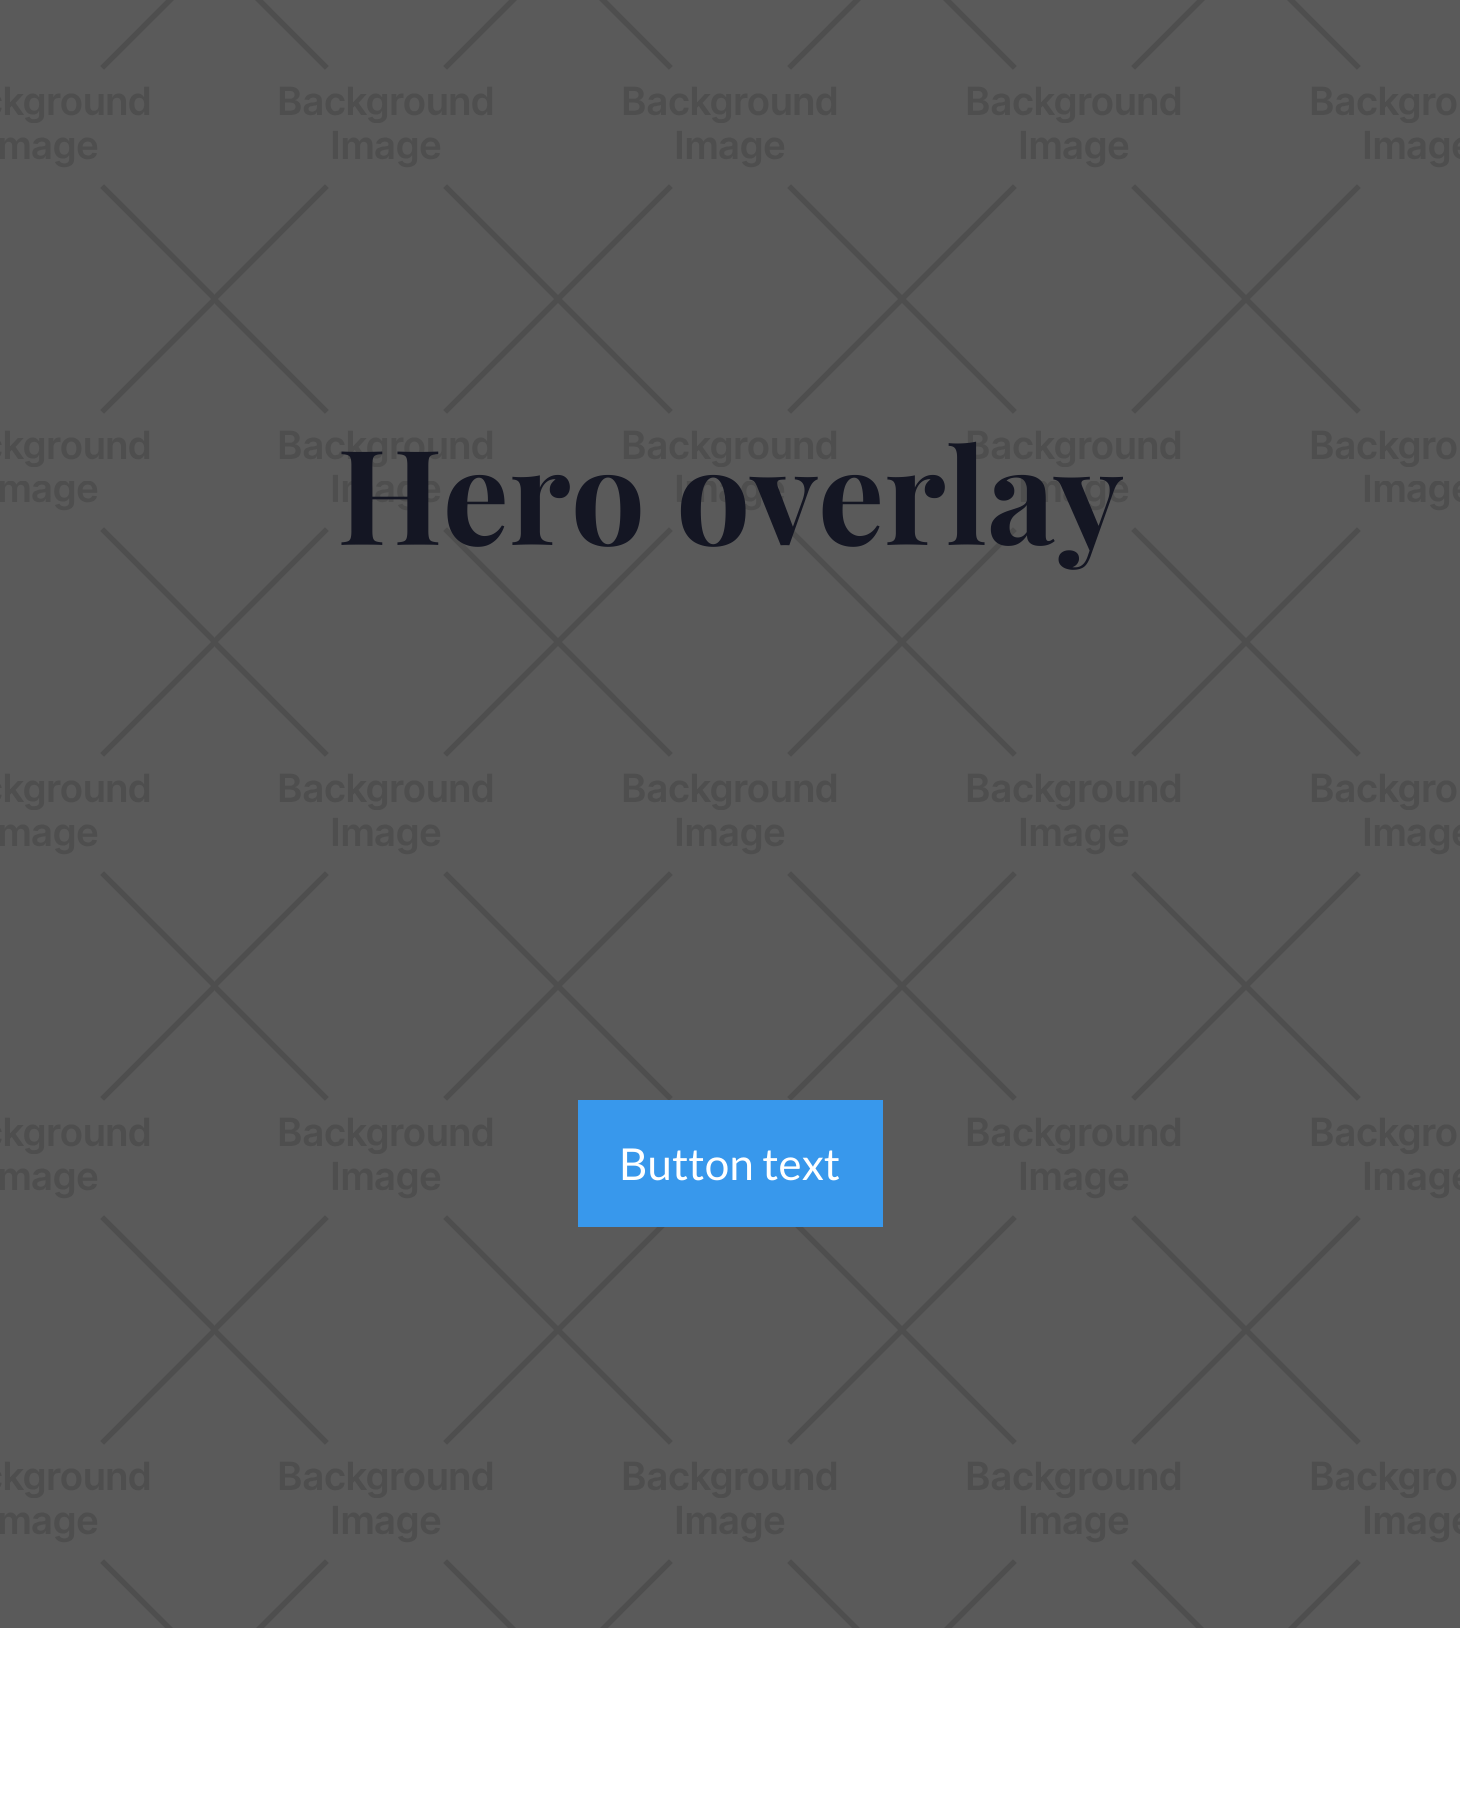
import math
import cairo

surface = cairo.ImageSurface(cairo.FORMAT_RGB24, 1460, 1807)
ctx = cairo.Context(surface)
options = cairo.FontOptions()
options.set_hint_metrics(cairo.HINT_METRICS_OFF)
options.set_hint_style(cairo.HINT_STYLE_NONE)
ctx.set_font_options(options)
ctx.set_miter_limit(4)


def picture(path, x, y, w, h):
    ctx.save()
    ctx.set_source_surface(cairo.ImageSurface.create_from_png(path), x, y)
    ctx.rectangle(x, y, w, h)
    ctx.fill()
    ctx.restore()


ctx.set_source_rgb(1, 1, 1)
ctx.paint()
picture("img1.png", 0, 0, 1460, 1628)
ctx.select_font_face("Playfair Display", cairo.FONT_SLANT_NORMAL, cairo.FONT_WEIGHT_BOLD)
ctx.set_font_size(132)
ctx.set_source_rgb(0.082, 0.086, 0.137)
ctx.move_to(337, 545)
ctx.show_text("Hero overlay")
ctx.set_source_rgb(0.22, 0.596, 0.925)
ctx.rectangle(578, 1100, 305, 127)
ctx.fill()
ctx.select_font_face("Lato")
ctx.set_font_size(44)
ctx.set_source_rgb(1, 1, 1)
ctx.move_to(619, 1180)
ctx.show_text("Button text")
surface.write_to_png("page.png")
